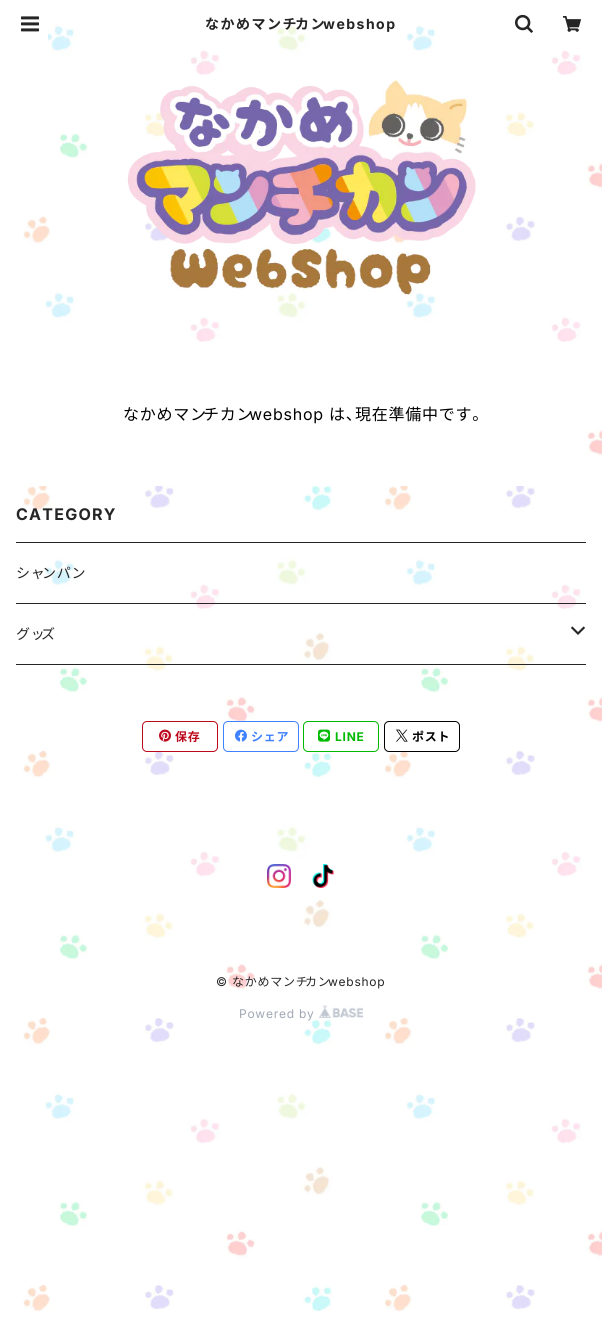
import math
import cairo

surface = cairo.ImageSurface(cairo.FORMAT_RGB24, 602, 1321)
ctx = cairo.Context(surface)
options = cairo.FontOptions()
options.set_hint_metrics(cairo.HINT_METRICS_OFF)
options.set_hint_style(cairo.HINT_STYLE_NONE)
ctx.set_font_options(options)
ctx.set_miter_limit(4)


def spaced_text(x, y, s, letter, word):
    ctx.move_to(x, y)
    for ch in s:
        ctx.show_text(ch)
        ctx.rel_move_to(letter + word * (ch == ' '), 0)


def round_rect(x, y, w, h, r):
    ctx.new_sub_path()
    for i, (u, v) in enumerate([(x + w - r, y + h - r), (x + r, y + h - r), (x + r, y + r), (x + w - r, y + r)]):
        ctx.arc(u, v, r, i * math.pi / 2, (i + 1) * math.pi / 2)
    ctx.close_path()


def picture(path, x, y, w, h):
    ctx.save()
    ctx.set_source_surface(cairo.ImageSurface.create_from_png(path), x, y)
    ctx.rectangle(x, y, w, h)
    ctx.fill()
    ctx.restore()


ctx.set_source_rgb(1, 1, 1)
ctx.paint()
picture("img1.png", 23, 24, 579, 1288)
ctx.set_source_rgb(1, 1, 1)
ctx.rectangle(45, 33, 3, 9)
ctx.fill()
picture("img2.png", 21, 16, 18, 16)
ctx.select_font_face("Noto Sans JP", cairo.FONT_SLANT_NORMAL, cairo.FONT_WEIGHT_BOLD)
ctx.set_font_size(14)
ctx.set_source_rgb(0.145, 0.145, 0.145)
spaced_text(205, 29, "なかめマンチ", 1.5, 0)
spaced_text(295, 29, "カン", 1.5, 0)
ctx.select_font_face("Inter", cairo.FONT_SLANT_NORMAL, cairo.FONT_WEIGHT_BOLD)
spaced_text(323, 29, "webshop", 1.5, 0)
picture("img3.png", 515, 14, 18, 19)
picture("img4.png", 563, 16, 18, 16)
picture("img5.png", 127, 79, 349, 219)
ctx.set_source_rgb(1, 1, 1)
ctx.rectangle(33, 365, 553, 121)
ctx.fill()
ctx.select_font_face("Noto Sans JP")
ctx.set_font_size(16)
ctx.set_source_rgb(0, 0, 0)
spaced_text(123, 420, "なかめマン", 0.75, 0)
spaced_text(203, 420, "チカン", 0.75, 0)
ctx.select_font_face("Inter")
spaced_text(249, 420, "webshop", 0.75, 0)
ctx.select_font_face("Noto Sans JP")
spaced_text(329, 420, "は、", 0.75, 0)
spaced_text(355, 420, "現在準備中です。", 0.75, 0)
ctx.select_font_face("Inter", cairo.FONT_SLANT_NORMAL, cairo.FONT_WEIGHT_BOLD)
ctx.set_source_rgb(0.145, 0.145, 0.145)
spaced_text(16, 520, "CATEGORY", 1.25, 0)
ctx.rectangle(16, 542, 570, 1)
ctx.fill()
ctx.rectangle(16, 664, 570, 1)
ctx.fill()
ctx.select_font_face("Noto Sans JP")
ctx.set_font_size(14)
spaced_text(16, 578, "シャ", 0.75, 0)
spaced_text(42, 578, "ンパン", 0.75, 0)
ctx.rectangle(16, 603, 570, 1)
ctx.fill()
spaced_text(16, 639, "グッ", 0.75, 0)
spaced_text(41, 639, "ズ", 0.75, 0)
picture("img6.png", 571, 626, 14, 9)
ctx.set_source_rgb(1, 1, 1)
round_rect(142.5, 721.5, 75, 30, 4.5)
ctx.fill_preserve()
ctx.set_source_rgb(0.741, 0.035, 0.11)
ctx.set_line_width(1)
ctx.stroke()
picture("img7.png", 159, 729, 12, 13)
ctx.select_font_face("Noto Sans JP", cairo.FONT_SLANT_NORMAL, cairo.FONT_WEIGHT_BOLD)
ctx.set_font_size(12)
spaced_text(175, 741, "保存", 0.75, 0)
ctx.set_source_rgb(1, 1, 1)
round_rect(223.5, 721.5, 75, 30, 4.5)
ctx.fill_preserve()
ctx.set_source_rgb(0.251, 0.506, 1)
ctx.stroke()
picture("img8.png", 235, 729, 12, 13)
spaced_text(251, 741, "シェア", 0.75, 0)
ctx.set_source_rgb(1, 1, 1)
round_rect(303.5, 721.5, 75, 30, 4.5)
ctx.fill_preserve()
ctx.set_source_rgb(0, 0.725, 0.004)
ctx.stroke()
picture("img9.png", 318, 729, 12, 13)
ctx.select_font_face("Inter", cairo.FONT_SLANT_NORMAL, cairo.FONT_WEIGHT_BOLD)
spaced_text(335, 741, "LINE", 0.75, 0)
ctx.set_source_rgb(1, 1, 1)
round_rect(384.5, 721.5, 75, 30, 4.5)
ctx.fill_preserve()
ctx.set_source_rgb(0, 0, 0)
ctx.stroke()
picture("img10.png", 396, 729, 12, 13)
ctx.select_font_face("Noto Sans JP", cairo.FONT_SLANT_NORMAL, cairo.FONT_WEIGHT_BOLD)
spaced_text(412, 741, "ポスト", 0.75, 0)
picture("img11.png", 267, 864, 24, 24)
picture("img12.png", 312, 864, 23, 24)
ctx.select_font_face("Inter")
ctx.set_source_rgb(0.145, 0.145, 0.145)
spaced_text(216, 986, "©", 0.75, 0)
ctx.select_font_face("Noto Sans JP")
spaced_text(232, 986, "なかめマンチ", 0.75, 0)
spaced_text(305, 986, "カン", 0.75, 0)
ctx.select_font_face("Inter")
spaced_text(328, 986, "webshop", 0.75, 0)
ctx.set_source_rgb(0.627, 0.655, 0.706)
spaced_text(239, 1018, "Powered by", 0.75, 0)
picture("img13.png", 319, 1005, 44, 13)
surface.write_to_png("page.png")
